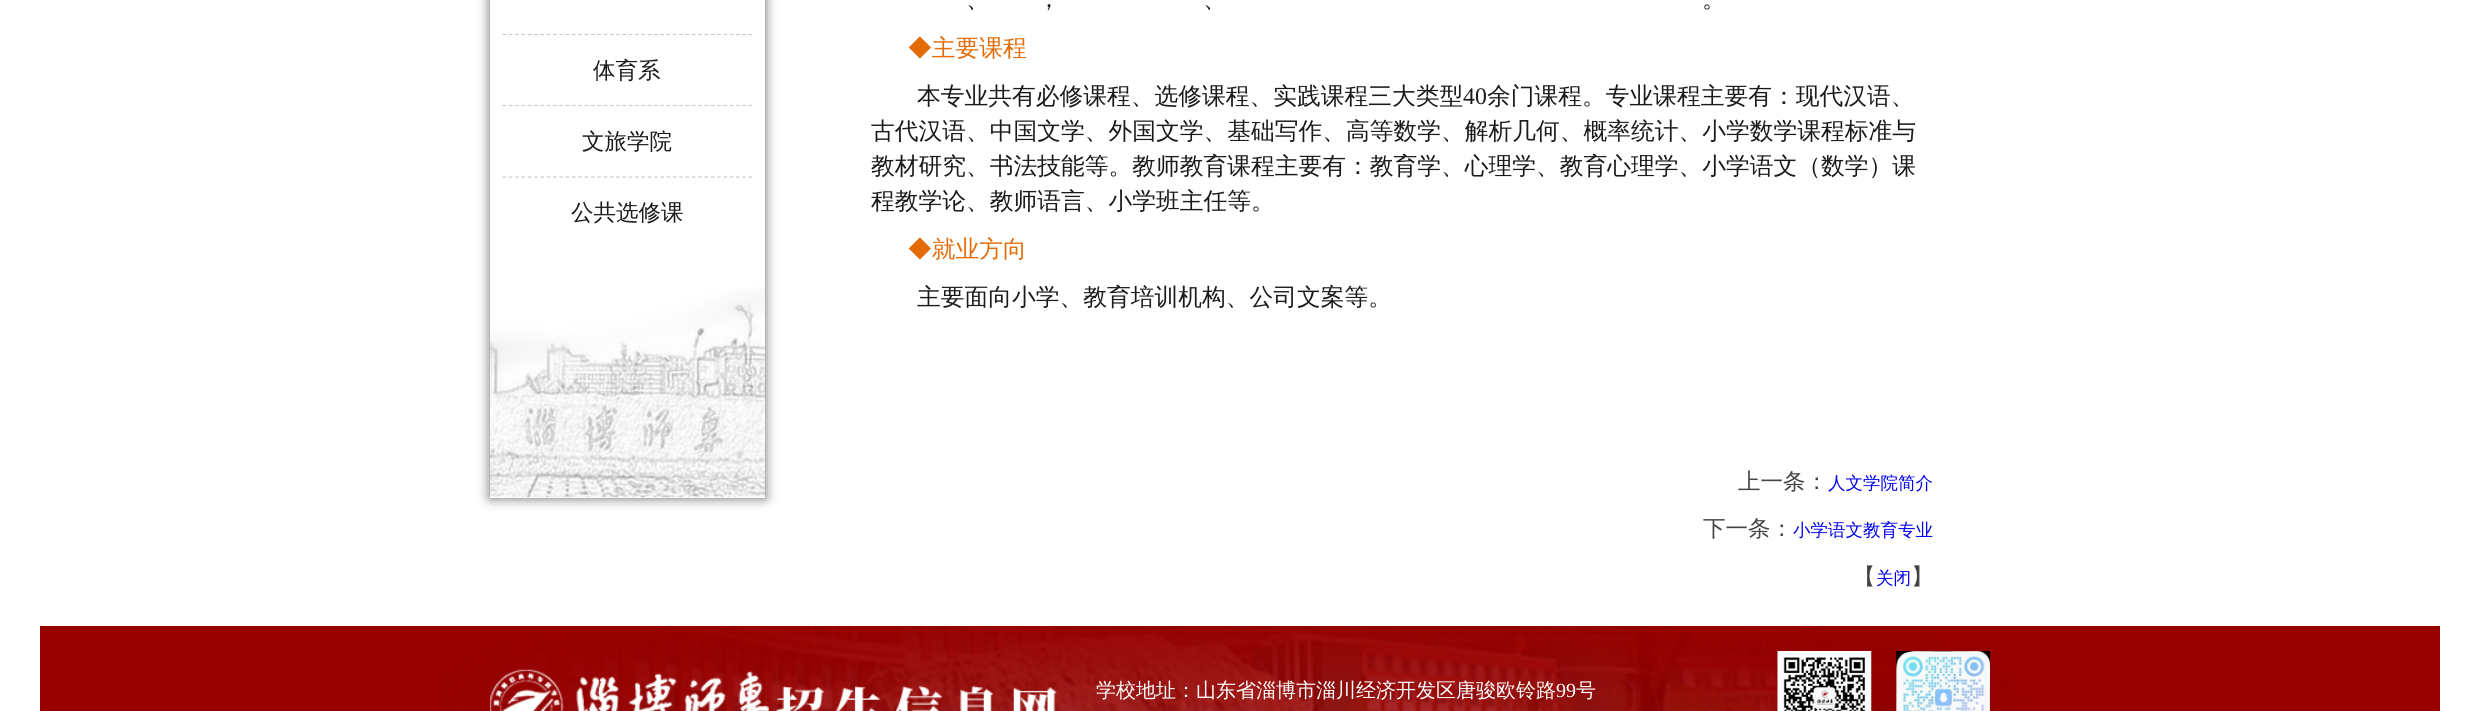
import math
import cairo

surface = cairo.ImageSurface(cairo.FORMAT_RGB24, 2478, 711)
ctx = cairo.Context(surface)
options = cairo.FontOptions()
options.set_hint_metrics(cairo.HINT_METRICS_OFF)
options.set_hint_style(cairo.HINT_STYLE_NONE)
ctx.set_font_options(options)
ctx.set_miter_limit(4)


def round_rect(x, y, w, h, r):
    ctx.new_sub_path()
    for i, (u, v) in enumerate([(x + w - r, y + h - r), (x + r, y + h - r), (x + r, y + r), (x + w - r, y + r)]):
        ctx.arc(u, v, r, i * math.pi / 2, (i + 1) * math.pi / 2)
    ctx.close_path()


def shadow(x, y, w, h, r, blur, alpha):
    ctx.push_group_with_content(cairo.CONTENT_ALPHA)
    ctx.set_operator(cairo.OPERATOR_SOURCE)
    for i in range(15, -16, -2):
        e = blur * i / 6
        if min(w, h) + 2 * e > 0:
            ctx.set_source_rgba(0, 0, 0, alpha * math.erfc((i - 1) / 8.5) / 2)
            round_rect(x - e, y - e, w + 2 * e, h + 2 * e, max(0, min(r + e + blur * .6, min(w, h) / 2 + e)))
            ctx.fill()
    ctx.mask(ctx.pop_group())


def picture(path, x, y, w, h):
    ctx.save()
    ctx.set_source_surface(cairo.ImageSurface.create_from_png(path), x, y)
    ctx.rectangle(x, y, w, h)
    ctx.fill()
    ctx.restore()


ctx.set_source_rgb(1, 1, 1)
ctx.paint()
ctx.set_source_rgb(0.4, 0.4, 0.4)
shadow(490, -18, 275, 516, 0, 6, 1)
ctx.set_source_rgb(1, 1, 1)
ctx.rectangle(490, 0, 275, 498)
ctx.fill()
picture("img1.png", 490, 287, 275, 211)
ctx.new_path()
ctx.move_to(502.5, 34.5)
ctx.line_to(752.5, 34.5)
ctx.set_source_rgb(0.8, 0.8, 0.8)
ctx.set_line_width(1.2)
ctx.set_dash([3.75, 2.56])
ctx.stroke()
ctx.new_path()
ctx.move_to(502.5, 105.5)
ctx.line_to(752.5, 105.5)
ctx.stroke()
ctx.select_font_face("WenQuanYi Zen Hei Medium")
ctx.set_font_size(22.5)
ctx.set_source_rgb(0.102, 0.102, 0.102)
ctx.move_to(593, 78)
ctx.show_text("体育系")
ctx.new_path()
ctx.move_to(502.5, 177)
ctx.line_to(752.5, 177)
ctx.set_source_rgb(0.8, 0.8, 0.8)
ctx.stroke()
ctx.set_source_rgb(0.102, 0.102, 0.102)
ctx.move_to(582, 149)
ctx.show_text("文旅学院")
ctx.move_to(571, 220)
ctx.show_text("公共选修课")
ctx.set_font_size(23.75)
ctx.move_to(966, 7)
ctx.show_text("、")
ctx.move_to(1037, 7)
ctx.show_text("，")
ctx.move_to(1203, 7)
ctx.show_text("、")
ctx.move_to(1702, 7)
ctx.show_text("。")
ctx.set_source_rgb(0.89, 0.424, 0.035)
ctx.move_to(908, 56)
ctx.show_text("◆主要课程")
ctx.set_source_rgb(0.102, 0.102, 0.102)
ctx.move_to(917, 104)
ctx.show_text("本专业共有必修课程、选修课程、实践课程三大类型")
ctx.select_font_face("Liberation Serif")
ctx.move_to(1463, 104)
ctx.show_text("40")
ctx.select_font_face("WenQuanYi Zen Hei Medium")
ctx.move_to(1487, 104)
ctx.show_text("余门课程。专业课程主要有：现代汉语、")
ctx.move_to(871, 139)
ctx.show_text("古代汉语、中国文学、外国文学、基础写作、高等数学、解析几何、概率统计、小学数学课程标准与")
ctx.move_to(871, 174)
ctx.show_text("教材研究、书法技能等。教师教育课程主要有：教育学、心理学、教育心理学、小学语文（数学）课")
ctx.move_to(871, 209)
ctx.show_text("程教学论、教师语言、小学班主任等。")
ctx.set_source_rgb(0.89, 0.424, 0.035)
ctx.move_to(908, 257)
ctx.show_text("◆就业方向")
ctx.set_source_rgb(0.102, 0.102, 0.102)
ctx.move_to(917, 305)
ctx.show_text("主要面向小学、教育培训机构、公司文案等。")
ctx.set_font_size(22.5)
ctx.set_source_rgb(0.267, 0.267, 0.267)
ctx.move_to(1738, 489)
ctx.show_text("上一条：")
ctx.set_font_size(17.5)
ctx.set_source_rgb(0, 0, 0.933)
ctx.move_to(1828, 489)
ctx.show_text("人文学院简介")
ctx.set_font_size(22.5)
ctx.set_source_rgb(0.267, 0.267, 0.267)
ctx.move_to(1703, 536)
ctx.show_text("下一条：")
ctx.set_font_size(17.5)
ctx.set_source_rgb(0, 0, 0.933)
ctx.move_to(1793, 536)
ctx.show_text("小学语文教育专业")
ctx.set_font_size(22.5)
ctx.set_source_rgb(0.267, 0.267, 0.267)
ctx.move_to(1853, 584)
ctx.show_text("【")
ctx.set_font_size(17.5)
ctx.set_source_rgb(0, 0, 0.933)
ctx.move_to(1876, 584)
ctx.show_text("关闭")
ctx.set_font_size(22.5)
ctx.set_source_rgb(0.267, 0.267, 0.267)
ctx.move_to(1911, 584)
ctx.show_text("】")
picture("img2.png", 40, 626, 2400, 85)
picture("img3.png", 490, 669, 567, 42)
ctx.set_font_size(20)
ctx.set_source_rgb(1, 1, 1)
ctx.move_to(1096, 697)
ctx.show_text("学校地址：山东省淄博市淄川经济开发区唐骏欧铃路")
ctx.select_font_face("Liberation Serif")
ctx.move_to(1556, 697)
ctx.show_text("99")
ctx.select_font_face("WenQuanYi Zen Hei Medium")
ctx.move_to(1576, 697)
ctx.show_text("号")
picture("img4.png", 1777, 651, 95, 60)
picture("img5.png", 1896, 651, 94, 60)
surface.write_to_png("page.png")
